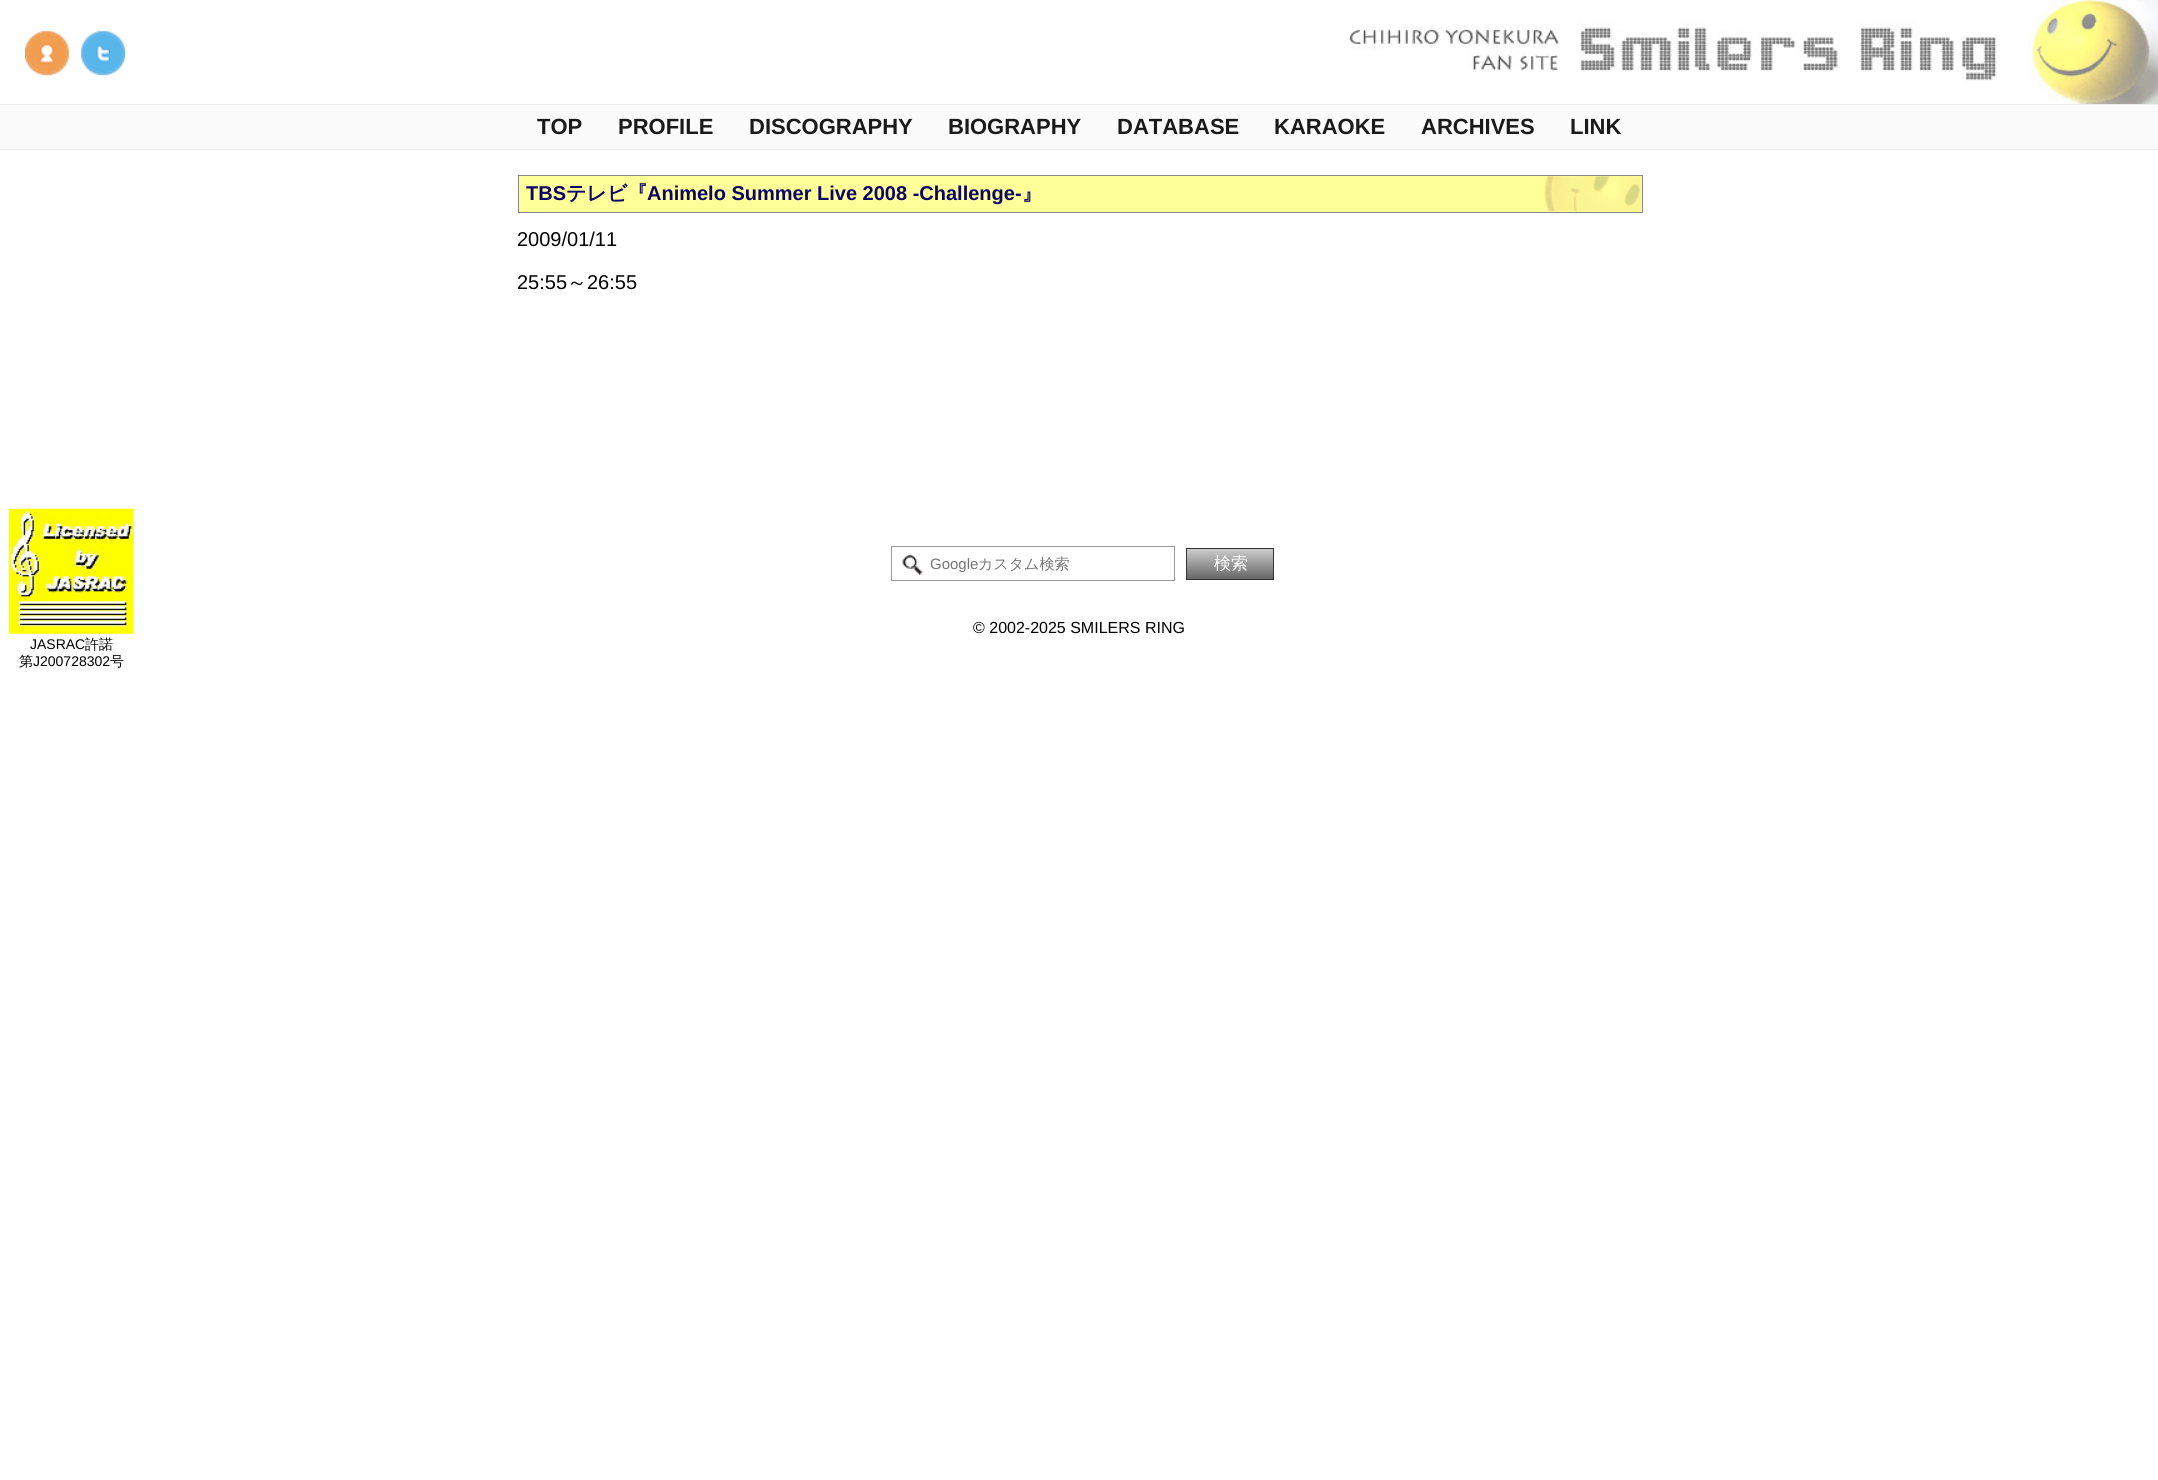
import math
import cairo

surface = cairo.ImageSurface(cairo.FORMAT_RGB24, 2158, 1480)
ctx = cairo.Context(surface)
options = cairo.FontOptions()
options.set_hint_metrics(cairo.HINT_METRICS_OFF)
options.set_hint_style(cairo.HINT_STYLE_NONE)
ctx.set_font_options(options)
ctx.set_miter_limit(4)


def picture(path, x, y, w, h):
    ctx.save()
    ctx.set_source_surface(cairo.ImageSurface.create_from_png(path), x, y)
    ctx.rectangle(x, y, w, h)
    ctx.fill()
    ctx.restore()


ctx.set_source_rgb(1, 1, 1)
ctx.paint()
picture("img1.png", 25, 31, 44, 45)
picture("img2.png", 81, 31, 44, 45)
picture("img3.png", 1349, 0, 809, 104)
ctx.set_source_rgb(0.984, 0.984, 0.984)
ctx.rectangle(0, 105, 2158, 44)
ctx.fill()
ctx.set_source_rgb(0.925, 0.925, 0.925)
ctx.rectangle(0, 104, 2158, 1)
ctx.fill()
ctx.rectangle(0, 149, 2158, 1)
ctx.fill()
ctx.select_font_face("Liberation Sans", cairo.FONT_SLANT_NORMAL, cairo.FONT_WEIGHT_BOLD)
ctx.set_font_size(22)
ctx.set_source_rgb(0.102, 0.102, 0.102)
ctx.move_to(537, 134)
ctx.show_text("TOP")
ctx.move_to(618, 134)
ctx.show_text("PROFILE")
ctx.move_to(749, 134)
ctx.show_text("DISCOGRAPHY")
ctx.move_to(948, 134)
ctx.show_text("BIOGRAPHY")
ctx.move_to(1117, 134)
ctx.show_text("DATABASE")
ctx.move_to(1274, 134)
ctx.show_text("KARAOKE")
ctx.move_to(1421, 134)
ctx.show_text("ARCHIVES")
ctx.move_to(1570, 134)
ctx.show_text("LINK")
ctx.set_source_rgb(1, 1, 0.6)
ctx.rectangle(519, 176, 1123, 36)
ctx.fill()
picture("img4.png", 1544, 176, 97, 36)
ctx.rectangle(518.5, 175.5, 1124, 37)
ctx.set_source_rgb(0.533, 0.533, 0.533)
ctx.set_line_width(1)
ctx.stroke()
ctx.set_font_size(20)
ctx.set_source_rgb(0.047, 0.012, 0.4)
ctx.move_to(526, 200)
ctx.show_text("TBS")
ctx.select_font_face("WenQuanYi Zen Hei", cairo.FONT_SLANT_NORMAL, cairo.FONT_WEIGHT_BOLD)
ctx.move_to(566, 200)
ctx.show_text("テレビ『")
ctx.select_font_face("Liberation Sans", cairo.FONT_SLANT_NORMAL, cairo.FONT_WEIGHT_BOLD)
ctx.move_to(647, 200)
ctx.show_text("Animelo Summer Live 2008 -Challenge-")
ctx.select_font_face("WenQuanYi Zen Hei", cairo.FONT_SLANT_NORMAL, cairo.FONT_WEIGHT_BOLD)
ctx.move_to(1022, 200)
ctx.show_text("』")
ctx.select_font_face("Liberation Sans")
ctx.set_source_rgb(0, 0, 0)
ctx.move_to(517, 246)
ctx.show_text("2009/01/11")
ctx.move_to(517, 289)
ctx.show_text("25:55")
ctx.select_font_face("WenQuanYi Zen Hei Medium")
ctx.move_to(567, 289)
ctx.show_text("～")
ctx.select_font_face("Liberation Sans")
ctx.move_to(587, 289)
ctx.show_text("26:55")
picture("img5.png", 902, 555, 21, 20)
ctx.rectangle(891.5, 546.5, 283, 34)
ctx.set_source_rgb(0.6, 0.6, 0.6)
ctx.stroke()
ctx.set_font_size(15)
ctx.set_source_rgb(0.459, 0.459, 0.459)
ctx.move_to(930, 569)
ctx.show_text("Google")
ctx.select_font_face("WenQuanYi Zen Hei Medium")
ctx.move_to(978, 569)
ctx.show_text("カスタム検索")
gradient = cairo.LinearGradient(1230, 549, 1230, 579)
gradient.add_color_stop_rgba(0, 0.8, 0.8, 0.8, 1)
gradient.add_color_stop_rgba(1, 0.4, 0.4, 0.4, 1)
ctx.set_source(gradient)
ctx.rectangle(1187, 549, 86, 30)
ctx.fill()
ctx.rectangle(1186.5, 548.5, 87, 31)
ctx.set_source_rgb(0.2, 0.2, 0.2)
ctx.stroke()
ctx.set_font_size(17)
ctx.set_source_rgb(1, 1, 1)
ctx.move_to(1214, 569)
ctx.show_text("検索")
ctx.select_font_face("Liberation Sans")
ctx.set_font_size(16)
ctx.set_source_rgb(0, 0, 0)
ctx.move_to(973, 633)
ctx.show_text("© 2002-2025 SMILERS RING")
picture("img6.png", 8, 508, 126, 126)
ctx.set_font_size(14)
ctx.move_to(30, 649)
ctx.show_text("JASRAC")
ctx.select_font_face("WenQuanYi Zen Hei Medium")
ctx.move_to(85, 649)
ctx.show_text("許諾")
ctx.move_to(19, 666)
ctx.show_text("第")
ctx.select_font_face("Liberation Sans")
ctx.move_to(33, 666)
ctx.show_text("J200728302")
ctx.select_font_face("WenQuanYi Zen Hei Medium")
ctx.move_to(110, 666)
ctx.show_text("号")
surface.write_to_png("page.png")
